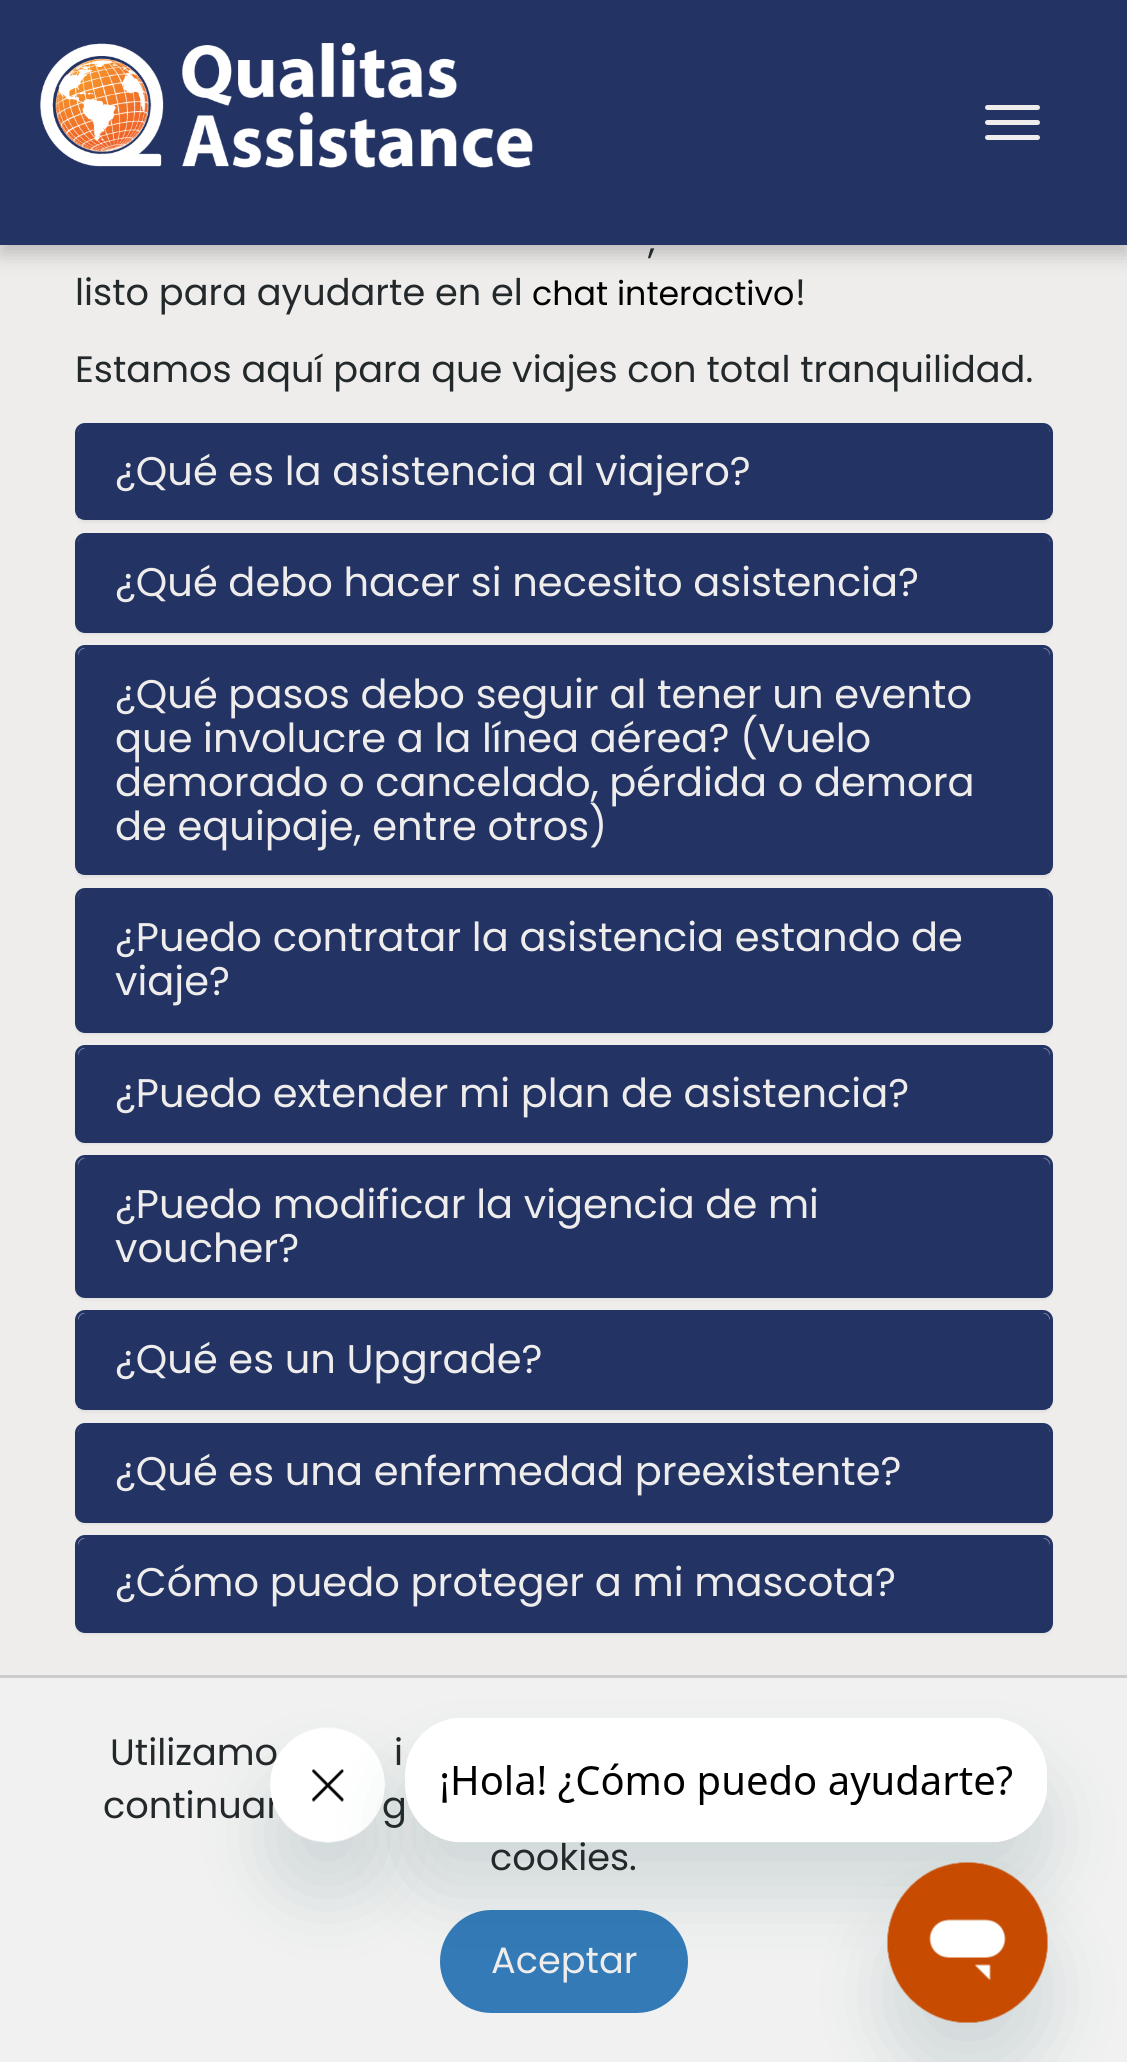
import math
import cairo

surface = cairo.ImageSurface(cairo.FORMAT_RGB24, 1127, 2062)
ctx = cairo.Context(surface)
options = cairo.FontOptions()
options.set_hint_metrics(cairo.HINT_METRICS_OFF)
options.set_hint_style(cairo.HINT_STYLE_NONE)
ctx.set_font_options(options)
ctx.set_miter_limit(4)


def round_rect(x, y, w, h, r):
    ctx.new_sub_path()
    for i, (u, v) in enumerate([(x + w - r, y + h - r), (x + r, y + h - r), (x + r, y + r), (x + w - r, y + r)]):
        ctx.arc(u, v, r, i * math.pi / 2, (i + 1) * math.pi / 2)
    ctx.close_path()


def shadow(x, y, w, h, r, blur, alpha):
    ctx.push_group_with_content(cairo.CONTENT_ALPHA)
    ctx.set_operator(cairo.OPERATOR_SOURCE)
    for i in range(15, -16, -2):
        e = blur * i / 6
        if min(w, h) + 2 * e > 0:
            ctx.set_source_rgba(0, 0, 0, alpha * math.erfc((i - 1) / 8.5) / 2)
            round_rect(x - e, y - e, w + 2 * e, h + 2 * e, max(0, min(r + e + blur * .6, min(w, h) / 2 + e)))
            ctx.fill()
    ctx.mask(ctx.pop_group())


def picture(path, x, y, w, h):
    ctx.save()
    ctx.set_source_surface(cairo.ImageSurface.create_from_png(path), x, y)
    ctx.rectangle(x, y, w, h)
    ctx.fill()
    ctx.restore()


ctx.set_source_rgb(0.933, 0.929, 0.925)
ctx.paint()
ctx.set_source_rgb(0, 0, 0)
shadow(0, 10, 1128, 245, 0, 10, 0.2)
ctx.set_source_rgb(0.137, 0.2, 0.392)
ctx.rectangle(0, 0, 1127, 245)
ctx.fill()
picture("img1.png", 40, 43, 493, 125)
ctx.set_source_rgb(0.933, 0.929, 0.925)
round_rect(985, 105, 55, 5, 2.5)
ctx.fill()
round_rect(985, 120, 55, 5, 2.5)
ctx.fill()
round_rect(985, 135, 55, 5, 2.5)
ctx.fill()
ctx.select_font_face("Poppins")
ctx.set_font_size(36.7)
ctx.set_source_rgb(0.137, 0.157, 0.169)
ctx.move_to(648, 253)
ctx.show_text(",")
ctx.move_to(75, 305)
ctx.show_text("listo para ayudarte en el")
ctx.set_font_size(33.25)
ctx.set_source_rgb(0, 0, 0)
ctx.move_to(532, 305)
ctx.show_text("chat interactivo")
ctx.set_font_size(36.7)
ctx.set_source_rgb(0.137, 0.157, 0.169)
ctx.move_to(795, 305)
ctx.show_text("!")
ctx.move_to(75, 382)
ctx.show_text("Estamos aquí para que viajes con total tranquilidad.")
ctx.set_source_rgb(0, 0, 0)
shadow(75, 425, 978, 98, 10, 1, 0.05)
round_rect(76.5, 424.5, 975, 94, 8.5)
ctx.set_source_rgb(0.137, 0.2, 0.392)
ctx.set_line_width(3)
ctx.stroke()
ctx.new_path()
ctx.move_to(86, 425)
ctx.line_to(1042, 425)
ctx.curve_to(1046.5, 425, 1050, 428.5, 1050, 433)
ctx.line_to(1050, 518)
ctx.line_to(78, 518)
ctx.line_to(78, 433)
ctx.curve_to(78, 428.5, 81.5, 425, 86, 425)
ctx.close_path()
ctx.fill()
ctx.set_font_size(40)
ctx.set_source_rgb(0.933, 0.929, 0.925)
ctx.move_to(115, 485)
ctx.show_text("¿Qué es la asistencia al viajero?")
ctx.set_source_rgb(0, 0, 0)
shadow(75, 535, 978, 100, 10, 1, 0.05)
round_rect(76.5, 534.5, 975, 97, 8.5)
ctx.set_source_rgb(0.137, 0.2, 0.392)
ctx.stroke()
ctx.new_path()
ctx.move_to(86, 535)
ctx.line_to(1042, 535)
ctx.curve_to(1046.5, 535, 1050, 538.5, 1050, 543)
ctx.line_to(1050, 630)
ctx.line_to(78, 630)
ctx.line_to(78, 543)
ctx.curve_to(78, 538.5, 81.5, 535, 86, 535)
ctx.close_path()
ctx.fill()
ctx.set_source_rgb(0.933, 0.929, 0.925)
ctx.move_to(115, 596)
ctx.show_text("¿Qué debo hacer si necesito asistencia?")
ctx.set_source_rgb(0, 0, 0)
shadow(75, 648, 978, 230, 10, 1, 0.05)
ctx.set_source_rgb(0.933, 0.929, 0.925)
round_rect(76.5, 646.5, 975, 227, 8.5)
ctx.fill_preserve()
ctx.set_source_rgb(0.137, 0.2, 0.392)
ctx.stroke()
ctx.new_path()
ctx.move_to(86, 648)
ctx.line_to(1042, 648)
ctx.curve_to(1046.5, 648, 1050, 651.5, 1050, 656)
ctx.line_to(1050, 873)
ctx.line_to(78, 873)
ctx.line_to(78, 656)
ctx.curve_to(78, 651.5, 81.5, 648, 86, 648)
ctx.close_path()
ctx.fill()
ctx.set_source_rgb(0.933, 0.929, 0.925)
ctx.move_to(115, 708)
ctx.show_text("¿Qué pasos debo seguir al tener un evento")
ctx.move_to(115, 752)
ctx.show_text("que involucre a la línea aérea? (Vuelo")
ctx.move_to(115, 796)
ctx.show_text("demorado o cancelado, pérdida o demora")
ctx.move_to(115, 840)
ctx.show_text("de equipaje, entre otros)")
ctx.set_source_rgb(0, 0, 0)
shadow(75, 890, 978, 145, 10, 1, 0.05)
round_rect(76.5, 889.5, 975, 142, 8.5)
ctx.set_source_rgb(0.137, 0.2, 0.392)
ctx.stroke()
ctx.new_path()
ctx.move_to(86, 890)
ctx.line_to(1042, 890)
ctx.curve_to(1046.5, 890, 1050, 893.5, 1050, 898)
ctx.line_to(1050, 1030)
ctx.line_to(78, 1030)
ctx.line_to(78, 898)
ctx.curve_to(78, 893.5, 81.5, 890, 86, 890)
ctx.close_path()
ctx.fill()
ctx.set_source_rgb(0.933, 0.929, 0.925)
ctx.move_to(115, 951)
ctx.show_text("¿Puedo contratar la asistencia estando de")
ctx.move_to(115, 995)
ctx.show_text("viaje?")
ctx.set_source_rgb(0, 0, 0)
shadow(75, 1048, 978, 97, 10, 1, 0.05)
ctx.set_source_rgb(0.933, 0.929, 0.925)
round_rect(76.5, 1046.5, 975, 95, 8.5)
ctx.fill_preserve()
ctx.set_source_rgb(0.137, 0.2, 0.392)
ctx.stroke()
ctx.new_path()
ctx.move_to(86, 1048)
ctx.line_to(1042, 1048)
ctx.curve_to(1046.5, 1048, 1050, 1051.5, 1050, 1056)
ctx.line_to(1050, 1140)
ctx.line_to(78, 1140)
ctx.line_to(78, 1056)
ctx.curve_to(78, 1051.5, 81.5, 1048, 86, 1048)
ctx.close_path()
ctx.fill()
ctx.set_source_rgb(0.933, 0.929, 0.925)
ctx.move_to(115, 1107)
ctx.show_text("¿Puedo extender mi plan de asistencia?")
ctx.set_source_rgb(0, 0, 0)
shadow(75, 1158, 978, 142, 10, 1, 0.05)
ctx.set_source_rgb(0.933, 0.929, 0.925)
round_rect(76.5, 1156.5, 975, 140, 8.5)
ctx.fill_preserve()
ctx.set_source_rgb(0.137, 0.2, 0.392)
ctx.stroke()
ctx.new_path()
ctx.move_to(86, 1158)
ctx.line_to(1042, 1158)
ctx.curve_to(1046.5, 1158, 1050, 1161.5, 1050, 1166)
ctx.line_to(1050, 1295)
ctx.line_to(78, 1295)
ctx.line_to(78, 1166)
ctx.curve_to(78, 1161.5, 81.5, 1158, 86, 1158)
ctx.close_path()
ctx.fill()
ctx.set_source_rgb(0.933, 0.929, 0.925)
ctx.move_to(115, 1218)
ctx.show_text("¿Puedo modificar la vigencia de mi")
ctx.move_to(115, 1262)
ctx.show_text("voucher?")
ctx.set_source_rgb(0, 0, 0)
shadow(75, 1313, 978, 100, 10, 1, 0.05)
ctx.set_source_rgb(0.933, 0.929, 0.925)
round_rect(76.5, 1311.5, 975, 97, 8.5)
ctx.fill_preserve()
ctx.set_source_rgb(0.137, 0.2, 0.392)
ctx.stroke()
ctx.new_path()
ctx.move_to(86, 1313)
ctx.line_to(1042, 1313)
ctx.curve_to(1046.5, 1313, 1050, 1316.5, 1050, 1321)
ctx.line_to(1050, 1408)
ctx.line_to(78, 1408)
ctx.line_to(78, 1321)
ctx.curve_to(78, 1316.5, 81.5, 1313, 86, 1313)
ctx.close_path()
ctx.fill()
ctx.set_source_rgb(0.933, 0.929, 0.925)
ctx.move_to(115, 1373)
ctx.show_text("¿Qué es un Upgrade?")
ctx.set_source_rgb(0, 0, 0)
shadow(75, 1425, 978, 100, 10, 1, 0.05)
round_rect(76.5, 1424.5, 975, 97, 8.5)
ctx.set_source_rgb(0.137, 0.2, 0.392)
ctx.stroke()
ctx.new_path()
ctx.move_to(86, 1425)
ctx.line_to(1042, 1425)
ctx.curve_to(1046.5, 1425, 1050, 1428.5, 1050, 1433)
ctx.line_to(1050, 1520)
ctx.line_to(78, 1520)
ctx.line_to(78, 1433)
ctx.curve_to(78, 1428.5, 81.5, 1425, 86, 1425)
ctx.close_path()
ctx.fill()
ctx.set_source_rgb(0.933, 0.929, 0.925)
ctx.move_to(115, 1485)
ctx.show_text("¿Qué es una enfermedad preexistente?")
ctx.set_source_rgb(0, 0, 0)
shadow(75, 1538, 978, 97, 10, 1, 0.05)
ctx.set_source_rgb(0.933, 0.929, 0.925)
round_rect(76.5, 1536.5, 975, 95, 8.5)
ctx.fill_preserve()
ctx.set_source_rgb(0.137, 0.2, 0.392)
ctx.stroke()
ctx.new_path()
ctx.move_to(86, 1538)
ctx.line_to(1042, 1538)
ctx.curve_to(1046.5, 1538, 1050, 1541.5, 1050, 1546)
ctx.line_to(1050, 1630)
ctx.line_to(78, 1630)
ctx.line_to(78, 1546)
ctx.curve_to(78, 1541.5, 81.5, 1538, 86, 1538)
ctx.close_path()
ctx.fill()
ctx.set_source_rgb(0.933, 0.929, 0.925)
ctx.move_to(115, 1596)
ctx.show_text("¿Cómo puedo proteger a mi mascota?")
ctx.set_source_rgb(0.945, 0.945, 0.945)
ctx.rectangle(0, 1678, 1127, 384)
ctx.fill()
ctx.set_source_rgb(0.8, 0.8, 0.8)
ctx.rectangle(0, 1675, 1127, 3)
ctx.fill()
ctx.set_source_rgb(0.2, 0.478, 0.718)
round_rect(440, 1910, 248, 103, 51.5)
ctx.fill()
ctx.set_source_rgb(0.09, 0.286, 0.302)
shadow(270, 1778, 115, 115, 57.5, 37.5, 0.15)
ctx.set_font_size(36.7)
ctx.set_source_rgb(0.137, 0.157, 0.169)
ctx.move_to(110, 1765)
ctx.show_text("Utilizamo")
ctx.move_to(103, 1818)
ctx.show_text("continuar")
ctx.move_to(382, 1818)
ctx.show_text("g")
picture("img3.png", 270, 1727, 115, 116)
ctx.set_source_rgb(0.09, 0.286, 0.302)
shadow(405, 1768, 643, 125, 58, 37.5, 0.15)
ctx.set_source_rgb(0.137, 0.157, 0.169)
ctx.move_to(490, 1870)
ctx.show_text("cookies.")
picture("img2.png", 405, 1718, 642, 125)
ctx.set_source_rgb(0.09, 0.286, 0.302)
shadow(888, 1913, 160, 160, 80, 37.5, 0.15)
picture("img4.png", 887, 1862, 161, 161)
ctx.set_source_rgb(0.137, 0.157, 0.169)
ctx.move_to(394, 1765)
ctx.show_text("i")
ctx.set_source_rgb(0.933, 0.929, 0.925)
ctx.move_to(491, 1973)
ctx.show_text("Aceptar")
surface.write_to_png("page.png")
